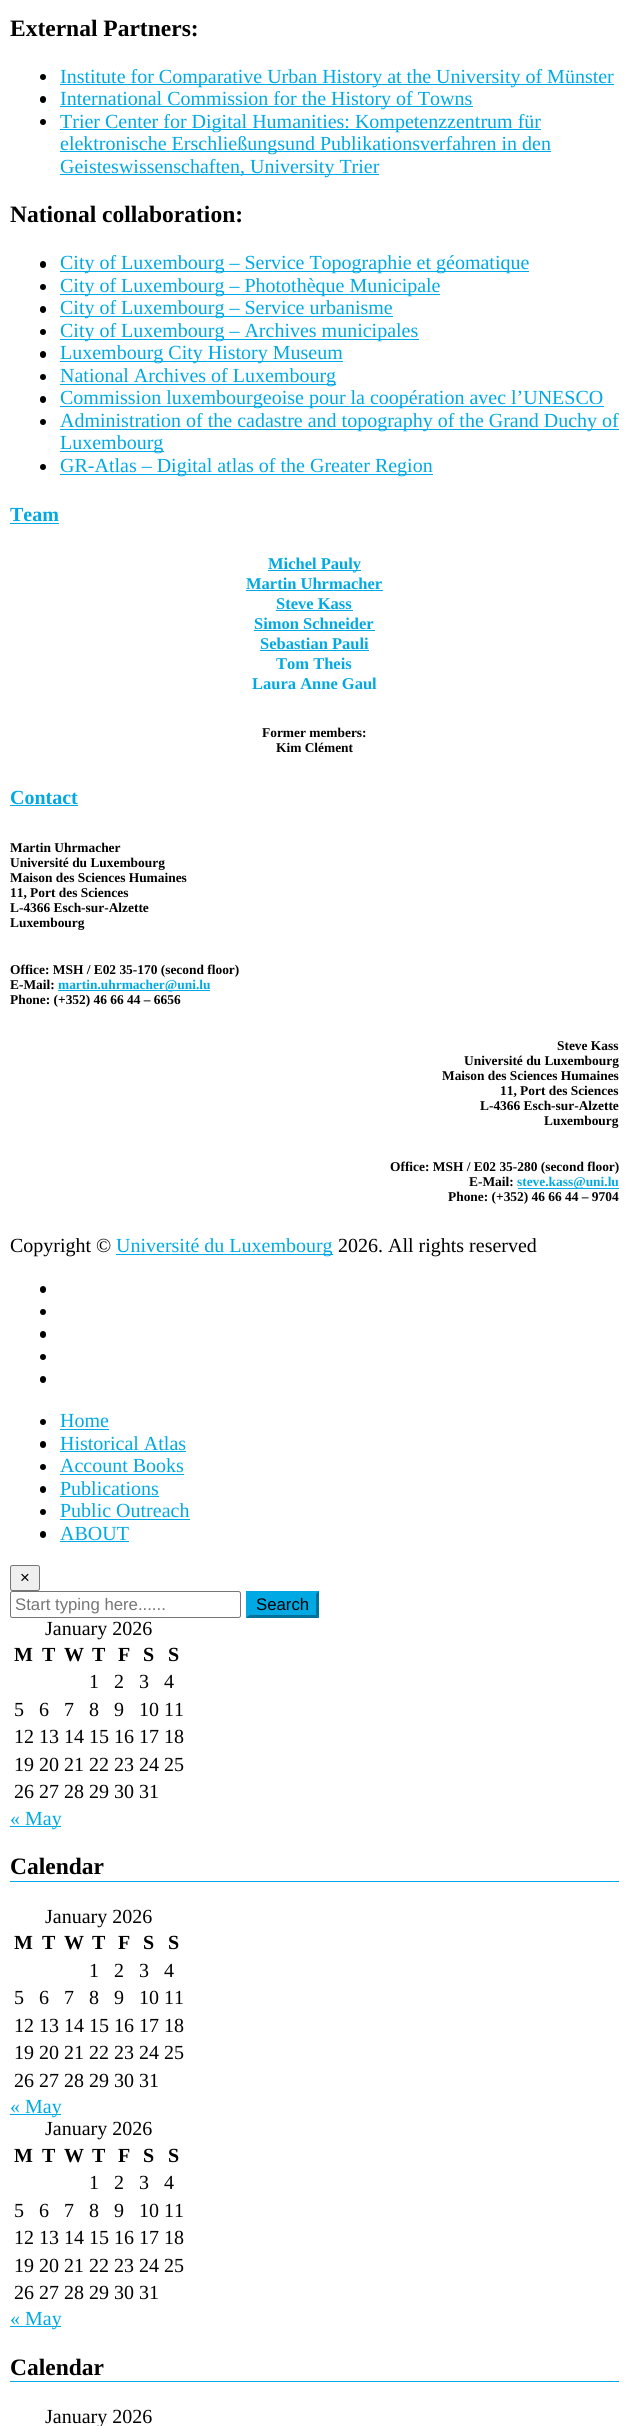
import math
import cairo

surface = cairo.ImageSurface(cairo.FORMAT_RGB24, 628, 2426)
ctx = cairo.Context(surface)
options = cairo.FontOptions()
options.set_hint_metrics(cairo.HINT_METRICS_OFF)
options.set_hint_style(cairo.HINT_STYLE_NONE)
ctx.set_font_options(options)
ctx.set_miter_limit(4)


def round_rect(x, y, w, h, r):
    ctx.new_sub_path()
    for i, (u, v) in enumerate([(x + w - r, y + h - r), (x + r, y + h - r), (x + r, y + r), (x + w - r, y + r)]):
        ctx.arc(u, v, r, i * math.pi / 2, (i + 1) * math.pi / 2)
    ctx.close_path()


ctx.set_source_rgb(1, 1, 1)
ctx.paint()
ctx.select_font_face("Liberation Serif", cairo.FONT_SLANT_NORMAL, cairo.FONT_WEIGHT_BOLD)
ctx.set_font_size(23.5)
ctx.set_source_rgb(0, 0, 0)
ctx.move_to(10, 36)
ctx.show_text("External Partners:")
ctx.new_path()
ctx.arc(43, 77, 3, 0, 2 * math.pi)
ctx.fill()
ctx.set_source_rgb(0, 0.663, 0.894)
ctx.rectangle(60, 84, 554, 1)
ctx.fill()
ctx.select_font_face("Liberation Serif")
ctx.set_font_size(20)
ctx.move_to(60, 83)
ctx.show_text("Institute for Comparative Urban History at the University of Münster")
ctx.set_source_rgb(0, 0, 0)
round_rect(40, 96, 6, 7, 3)
ctx.fill()
ctx.set_source_rgb(0, 0.663, 0.894)
ctx.rectangle(60, 106, 413, 1)
ctx.fill()
ctx.move_to(60, 105)
ctx.show_text("International Commission for the History of Towns")
ctx.set_source_rgb(0, 0, 0)
ctx.new_path()
ctx.arc(43, 122, 3, 0, 2 * math.pi)
ctx.fill()
ctx.set_source_rgb(0, 0.663, 0.894)
ctx.rectangle(60, 129, 481, 1)
ctx.fill()
ctx.move_to(60, 128)
ctx.show_text("Trier Center for Digital Humanities: Kompetenzzentrum für")
ctx.rectangle(60, 151, 491, 1)
ctx.fill()
ctx.move_to(60, 150)
ctx.show_text("elektronische Erschließungsund Publikationsverfahren in den")
ctx.rectangle(60, 174, 319, 1)
ctx.fill()
ctx.move_to(60, 173)
ctx.show_text("Geisteswissenschaften, University Trier")
ctx.select_font_face("Liberation Serif", cairo.FONT_SLANT_NORMAL, cairo.FONT_WEIGHT_BOLD)
ctx.set_font_size(23.5)
ctx.set_source_rgb(0, 0, 0)
ctx.move_to(10, 222)
ctx.show_text("National collaboration:")
round_rect(40, 261, 6, 7, 3)
ctx.fill()
ctx.set_source_rgb(0, 0.663, 0.894)
ctx.rectangle(60, 271, 469, 1)
ctx.fill()
ctx.select_font_face("Liberation Serif")
ctx.set_font_size(20)
ctx.move_to(60, 269)
ctx.show_text("City of Luxembourg – Service Topographie et géomatique")
ctx.set_source_rgb(0, 0, 0)
ctx.new_path()
ctx.arc(43, 287, 3, 0, 2 * math.pi)
ctx.fill()
ctx.set_source_rgb(0, 0.663, 0.894)
ctx.rectangle(60, 294, 380, 1)
ctx.fill()
ctx.move_to(60, 292)
ctx.show_text("City of Luxembourg – Photothèque Municipale")
ctx.set_source_rgb(0, 0, 0)
round_rect(40, 306, 6, 7, 3)
ctx.fill()
ctx.set_source_rgb(0, 0.663, 0.894)
ctx.rectangle(60, 316, 333, 1)
ctx.fill()
ctx.move_to(60, 314)
ctx.show_text("City of Luxembourg – Service urbanisme")
ctx.set_source_rgb(0, 0, 0)
ctx.new_path()
ctx.arc(43, 332, 3, 0, 2 * math.pi)
ctx.fill()
ctx.set_source_rgb(0, 0.663, 0.894)
ctx.rectangle(60, 339, 359, 1)
ctx.fill()
ctx.move_to(60, 337)
ctx.show_text("City of Luxembourg – Archives municipales")
ctx.set_source_rgb(0, 0, 0)
round_rect(40, 351, 6, 7, 3)
ctx.fill()
ctx.set_source_rgb(0, 0.663, 0.894)
ctx.rectangle(60, 361, 283, 1)
ctx.fill()
ctx.move_to(60, 359)
ctx.show_text("Luxembourg City History Museum")
ctx.set_source_rgb(0, 0, 0)
ctx.new_path()
ctx.arc(43, 377, 3, 0, 2 * math.pi)
ctx.fill()
ctx.set_source_rgb(0, 0.663, 0.894)
ctx.rectangle(60, 384, 276, 1)
ctx.fill()
ctx.move_to(60, 382)
ctx.show_text("National Archives of Luxembourg")
ctx.set_source_rgb(0, 0, 0)
round_rect(40, 396, 6, 7, 3)
ctx.fill()
ctx.set_source_rgb(0, 0.663, 0.894)
ctx.rectangle(60, 406, 544, 1)
ctx.fill()
ctx.move_to(60, 404)
ctx.show_text("Commission luxembourgeoise pour la coopération avec l’UNESCO")
ctx.set_source_rgb(0, 0, 0)
ctx.new_path()
ctx.arc(43, 422, 3, 0, 2 * math.pi)
ctx.fill()
ctx.set_source_rgb(0, 0.663, 0.894)
ctx.rectangle(60, 429, 559, 1)
ctx.fill()
ctx.move_to(60, 427)
ctx.show_text("Administration of the cadastre and topography of the Grand Duchy of")
ctx.rectangle(60, 451, 104, 1)
ctx.fill()
ctx.move_to(60, 449)
ctx.show_text("Luxembourg")
ctx.set_source_rgb(0, 0, 0)
ctx.new_path()
ctx.arc(43, 467, 3, 0, 2 * math.pi)
ctx.fill()
ctx.set_source_rgb(0, 0.663, 0.894)
ctx.rectangle(60, 474, 373, 1)
ctx.fill()
ctx.move_to(60, 472)
ctx.show_text("GR-Atlas – Digital atlas of the Greater Region")
ctx.select_font_face("Liberation Serif", cairo.FONT_SLANT_NORMAL, cairo.FONT_WEIGHT_BOLD)
ctx.move_to(10, 521)
ctx.show_text("Team")
ctx.rectangle(10, 523, 49, 1)
ctx.fill()
ctx.rectangle(268, 570, 93, 1)
ctx.fill()
ctx.set_font_size(16.5)
ctx.move_to(268, 569)
ctx.show_text("Michel Pauly")
ctx.move_to(246, 589)
ctx.show_text("Martin Uhrmacher")
ctx.rectangle(246, 590, 137, 1)
ctx.fill()
ctx.move_to(276, 609)
ctx.show_text("Steve Kass")
ctx.rectangle(276, 610, 77, 1)
ctx.fill()
ctx.move_to(254, 629)
ctx.show_text("Simon Schneider")
ctx.rectangle(254, 630, 121, 1)
ctx.fill()
ctx.move_to(260, 649)
ctx.show_text("Sebastian Pauli")
ctx.rectangle(260, 650, 109, 1)
ctx.fill()
ctx.move_to(276, 669)
ctx.show_text("Tom Theis")
ctx.move_to(252, 689)
ctx.show_text("Laura Anne Gaul")
ctx.set_font_size(13.4)
ctx.set_source_rgb(0, 0, 0)
ctx.move_to(262, 737)
ctx.show_text("Former members:")
ctx.move_to(276, 752)
ctx.show_text("Kim Clément")
ctx.set_font_size(20)
ctx.set_source_rgb(0, 0.663, 0.894)
ctx.move_to(10, 804)
ctx.show_text("Contact")
ctx.rectangle(10, 805, 68, 1)
ctx.fill()
ctx.set_font_size(13.4)
ctx.set_source_rgb(0, 0, 0)
ctx.move_to(10, 852)
ctx.show_text("Martin Uhrmacher")
ctx.move_to(10, 867)
ctx.show_text("Université du Luxembourg")
ctx.move_to(10, 882)
ctx.show_text("Maison des Sciences Humaines")
ctx.move_to(10, 897)
ctx.show_text("11, Port des Sciences")
ctx.move_to(10, 912)
ctx.show_text("L-4366 Esch-sur-Alzette")
ctx.move_to(10, 927)
ctx.show_text("Luxembourg")
ctx.move_to(10, 974)
ctx.show_text("Office: MSH / E02 35-170 (second floor)")
ctx.move_to(10, 989)
ctx.show_text("E-Mail:")
ctx.set_source_rgb(0, 0.663, 0.894)
ctx.rectangle(58, 990, 152, 1)
ctx.fill()
ctx.move_to(58, 989)
ctx.show_text("martin.uhrmacher@uni.lu")
ctx.set_source_rgb(0, 0, 0)
ctx.move_to(10, 1004)
ctx.show_text("Phone: (+352) 46 66 44 – 6656")
ctx.move_to(557, 1050)
ctx.show_text("Steve Kass")
ctx.move_to(464, 1065)
ctx.show_text("Université du Luxembourg")
ctx.move_to(442, 1080)
ctx.show_text("Maison des Sciences Humaines")
ctx.move_to(500, 1095)
ctx.show_text("11, Port des Sciences")
ctx.move_to(480, 1110)
ctx.show_text("L-4366 Esch-sur-Alzette")
ctx.move_to(544, 1125)
ctx.show_text("Luxembourg")
ctx.move_to(390, 1171)
ctx.show_text("Office: MSH / E02 35-280 (second floor)")
ctx.move_to(469, 1186)
ctx.show_text("E-Mail:")
ctx.set_source_rgb(0, 0.663, 0.894)
ctx.rectangle(518, 1188, 101, 1)
ctx.fill()
ctx.move_to(517, 1186)
ctx.show_text("steve.kass@uni.lu")
ctx.set_source_rgb(0, 0, 0)
ctx.move_to(448, 1201)
ctx.show_text("Phone: (+352) 46 66 44 – 9704")
ctx.select_font_face("Liberation Serif")
ctx.set_font_size(20)
ctx.move_to(10, 1252)
ctx.show_text("Copyright ©")
ctx.set_source_rgb(0, 0.663, 0.894)
ctx.rectangle(116, 1254, 217, 1)
ctx.fill()
ctx.move_to(116, 1252)
ctx.show_text("Université du Luxembourg")
ctx.set_source_rgb(0, 0, 0)
ctx.move_to(338, 1252)
ctx.show_text("2026. All rights reserved")
round_rect(40, 1286, 6, 7, 3)
ctx.fill()
ctx.arc(43, 1312, 3, 0, 2 * math.pi)
ctx.fill()
round_rect(40, 1331, 6, 7, 3)
ctx.fill()
ctx.arc(43, 1357, 3, 0, 2 * math.pi)
ctx.fill()
round_rect(40, 1376, 6, 7, 3)
ctx.fill()
ctx.arc(43, 1422, 3, 0, 2 * math.pi)
ctx.fill()
ctx.set_source_rgb(0, 0.663, 0.894)
ctx.move_to(60, 1427)
ctx.show_text("Home")
ctx.rectangle(60, 1429, 49, 1)
ctx.fill()
ctx.set_source_rgb(0, 0, 0)
round_rect(40, 1441, 6, 7, 3)
ctx.fill()
ctx.set_source_rgb(0, 0.663, 0.894)
ctx.move_to(60, 1450)
ctx.show_text("Historical Atlas")
ctx.rectangle(60, 1451, 126, 1)
ctx.fill()
ctx.set_source_rgb(0, 0, 0)
ctx.arc(43, 1467, 3, 0, 2 * math.pi)
ctx.fill()
ctx.set_source_rgb(0, 0.663, 0.894)
ctx.move_to(60, 1472)
ctx.show_text("Account Books")
ctx.rectangle(60, 1474, 124, 1)
ctx.fill()
ctx.set_source_rgb(0, 0, 0)
round_rect(40, 1486, 6, 7, 3)
ctx.fill()
ctx.set_source_rgb(0, 0.663, 0.894)
ctx.move_to(60, 1495)
ctx.show_text("Publications")
ctx.rectangle(60, 1496, 99, 1)
ctx.fill()
ctx.set_source_rgb(0, 0, 0)
ctx.arc(43, 1512, 3, 0, 2 * math.pi)
ctx.fill()
ctx.set_source_rgb(0, 0.663, 0.894)
ctx.move_to(60, 1517)
ctx.show_text("Public Outreach")
ctx.rectangle(60, 1519, 130, 1)
ctx.fill()
ctx.set_source_rgb(0, 0, 0)
round_rect(40, 1531, 6, 7, 3)
ctx.fill()
ctx.set_source_rgb(0, 0.663, 0.894)
ctx.move_to(60, 1540)
ctx.show_text("ABOUT")
ctx.rectangle(60, 1541, 69, 1)
ctx.fill()
ctx.set_source_rgb(0.937, 0.937, 0.937)
round_rect(10.5, 1565.5, 29, 25, 2)
ctx.fill_preserve()
ctx.set_source_rgb(0.463, 0.463, 0.463)
ctx.set_line_width(1)
ctx.stroke()
ctx.select_font_face("Liberation Sans")
ctx.set_font_size(16.75)
ctx.set_source_rgb(0, 0, 0)
ctx.move_to(20, 1583)
ctx.show_text("×")
round_rect(10.5, 1591.5, 230, 26, 2)
ctx.set_source_rgb(0.463, 0.463, 0.463)
ctx.stroke()
ctx.set_source_rgb(0.459, 0.459, 0.459)
ctx.move_to(15, 1610)
ctx.show_text("Start typing here......")
ctx.set_source_rgb(0, 0.663, 0.894)
ctx.rectangle(246, 1591, 73, 27)
ctx.fill()
ctx.set_source_rgb(0, 0.443, 0.596)
ctx.new_path()
ctx.move_to(319, 1591)
ctx.line_to(319, 1617.5)
ctx.line_to(316, 1615)
ctx.line_to(316, 1594)
ctx.close_path()
ctx.fill()
ctx.new_path()
ctx.move_to(319, 1618)
ctx.line_to(246, 1618)
ctx.line_to(249, 1615)
ctx.line_to(316, 1615)
ctx.close_path()
ctx.fill()
ctx.set_source_rgb(0, 0.663, 0.894)
ctx.new_path()
ctx.move_to(246, 1617.5)
ctx.line_to(246, 1591)
ctx.line_to(249, 1594)
ctx.line_to(249, 1615)
ctx.close_path()
ctx.fill()
ctx.set_source_rgb(0, 0, 0)
ctx.move_to(256, 1610)
ctx.show_text("Search")
ctx.select_font_face("Liberation Serif")
ctx.set_font_size(20)
ctx.move_to(45, 1635)
ctx.show_text("January 2026")
ctx.select_font_face("Liberation Serif", cairo.FONT_SLANT_NORMAL, cairo.FONT_WEIGHT_BOLD)
ctx.move_to(14, 1661)
ctx.show_text("M")
ctx.move_to(42, 1661)
ctx.show_text("T")
ctx.move_to(64, 1661)
ctx.show_text("W")
ctx.move_to(92, 1661)
ctx.show_text("T")
ctx.move_to(118, 1661)
ctx.show_text("F")
ctx.move_to(143, 1661)
ctx.show_text("S")
ctx.move_to(168, 1661)
ctx.show_text("S")
ctx.select_font_face("Liberation Serif")
ctx.move_to(89, 1688)
ctx.show_text("1")
ctx.move_to(114, 1688)
ctx.show_text("2")
ctx.move_to(139, 1688)
ctx.show_text("3")
ctx.move_to(164, 1688)
ctx.show_text("4")
ctx.move_to(14, 1716)
ctx.show_text("5")
ctx.move_to(39, 1716)
ctx.show_text("6")
ctx.move_to(64, 1716)
ctx.show_text("7")
ctx.move_to(89, 1716)
ctx.show_text("8")
ctx.move_to(114, 1716)
ctx.show_text("9")
ctx.move_to(139, 1716)
ctx.show_text("10 11")
ctx.move_to(14, 1743)
ctx.show_text("12 13 14 15 16 17 18")
ctx.move_to(14, 1771)
ctx.show_text("19 20 21 22 23 24 25")
ctx.move_to(14, 1798)
ctx.show_text("26 27 28 29 30 31")
ctx.set_source_rgb(0, 0.663, 0.894)
ctx.rectangle(10, 1826, 51, 1)
ctx.fill()
ctx.move_to(10, 1825)
ctx.show_text("« May")
ctx.rectangle(10, 1881, 609, 1)
ctx.fill()
ctx.select_font_face("Liberation Serif", cairo.FONT_SLANT_NORMAL, cairo.FONT_WEIGHT_BOLD)
ctx.set_font_size(23.5)
ctx.set_source_rgb(0, 0, 0)
ctx.move_to(10, 1874)
ctx.show_text("Calendar")
ctx.select_font_face("Liberation Serif")
ctx.set_font_size(20)
ctx.move_to(45, 1923)
ctx.show_text("January 2026")
ctx.select_font_face("Liberation Serif", cairo.FONT_SLANT_NORMAL, cairo.FONT_WEIGHT_BOLD)
ctx.move_to(14, 1949)
ctx.show_text("M")
ctx.move_to(42, 1949)
ctx.show_text("T")
ctx.move_to(64, 1949)
ctx.show_text("W")
ctx.move_to(92, 1949)
ctx.show_text("T")
ctx.move_to(118, 1949)
ctx.show_text("F")
ctx.move_to(143, 1949)
ctx.show_text("S")
ctx.move_to(168, 1949)
ctx.show_text("S")
ctx.select_font_face("Liberation Serif")
ctx.move_to(89, 1977)
ctx.show_text("1")
ctx.move_to(114, 1977)
ctx.show_text("2")
ctx.move_to(139, 1977)
ctx.show_text("3")
ctx.move_to(164, 1977)
ctx.show_text("4")
ctx.move_to(14, 2004)
ctx.show_text("5")
ctx.move_to(39, 2004)
ctx.show_text("6")
ctx.move_to(64, 2004)
ctx.show_text("7")
ctx.move_to(89, 2004)
ctx.show_text("8")
ctx.move_to(114, 2004)
ctx.show_text("9")
ctx.move_to(139, 2004)
ctx.show_text("10 11")
ctx.move_to(14, 2032)
ctx.show_text("12 13 14 15 16 17 18")
ctx.move_to(14, 2059)
ctx.show_text("19 20 21 22 23 24 25")
ctx.move_to(14, 2087)
ctx.show_text("26 27 28 29 30 31")
ctx.set_source_rgb(0, 0.663, 0.894)
ctx.rectangle(10, 2114, 51, 1)
ctx.fill()
ctx.move_to(10, 2113)
ctx.show_text("« May")
ctx.set_source_rgb(0, 0, 0)
ctx.move_to(45, 2135)
ctx.show_text("January 2026")
ctx.select_font_face("Liberation Serif", cairo.FONT_SLANT_NORMAL, cairo.FONT_WEIGHT_BOLD)
ctx.move_to(14, 2162)
ctx.show_text("M")
ctx.move_to(42, 2162)
ctx.show_text("T")
ctx.move_to(64, 2162)
ctx.show_text("W")
ctx.move_to(92, 2162)
ctx.show_text("T")
ctx.move_to(118, 2162)
ctx.show_text("F")
ctx.move_to(143, 2162)
ctx.show_text("S")
ctx.move_to(168, 2162)
ctx.show_text("S")
ctx.select_font_face("Liberation Serif")
ctx.move_to(89, 2189)
ctx.show_text("1")
ctx.move_to(114, 2189)
ctx.show_text("2")
ctx.move_to(139, 2189)
ctx.show_text("3")
ctx.move_to(164, 2189)
ctx.show_text("4")
ctx.move_to(14, 2217)
ctx.show_text("5")
ctx.move_to(39, 2217)
ctx.show_text("6")
ctx.move_to(64, 2217)
ctx.show_text("7")
ctx.move_to(89, 2217)
ctx.show_text("8")
ctx.move_to(114, 2217)
ctx.show_text("9")
ctx.move_to(139, 2217)
ctx.show_text("10 11")
ctx.move_to(14, 2244)
ctx.show_text("12 13 14 15 16 17 18")
ctx.move_to(14, 2272)
ctx.show_text("19 20 21 22 23 24 25")
ctx.move_to(14, 2299)
ctx.show_text("26 27 28 29 30 31")
ctx.set_source_rgb(0, 0.663, 0.894)
ctx.rectangle(10, 2326, 51, 1)
ctx.fill()
ctx.move_to(10, 2325)
ctx.show_text("« May")
ctx.rectangle(10, 2381, 609, 1)
ctx.fill()
ctx.select_font_face("Liberation Serif", cairo.FONT_SLANT_NORMAL, cairo.FONT_WEIGHT_BOLD)
ctx.set_font_size(23.5)
ctx.set_source_rgb(0, 0, 0)
ctx.move_to(10, 2375)
ctx.show_text("Calendar")
ctx.select_font_face("Liberation Serif")
ctx.set_font_size(20)
ctx.move_to(45, 2423)
ctx.show_text("January 2026")
surface.write_to_png("page.png")
